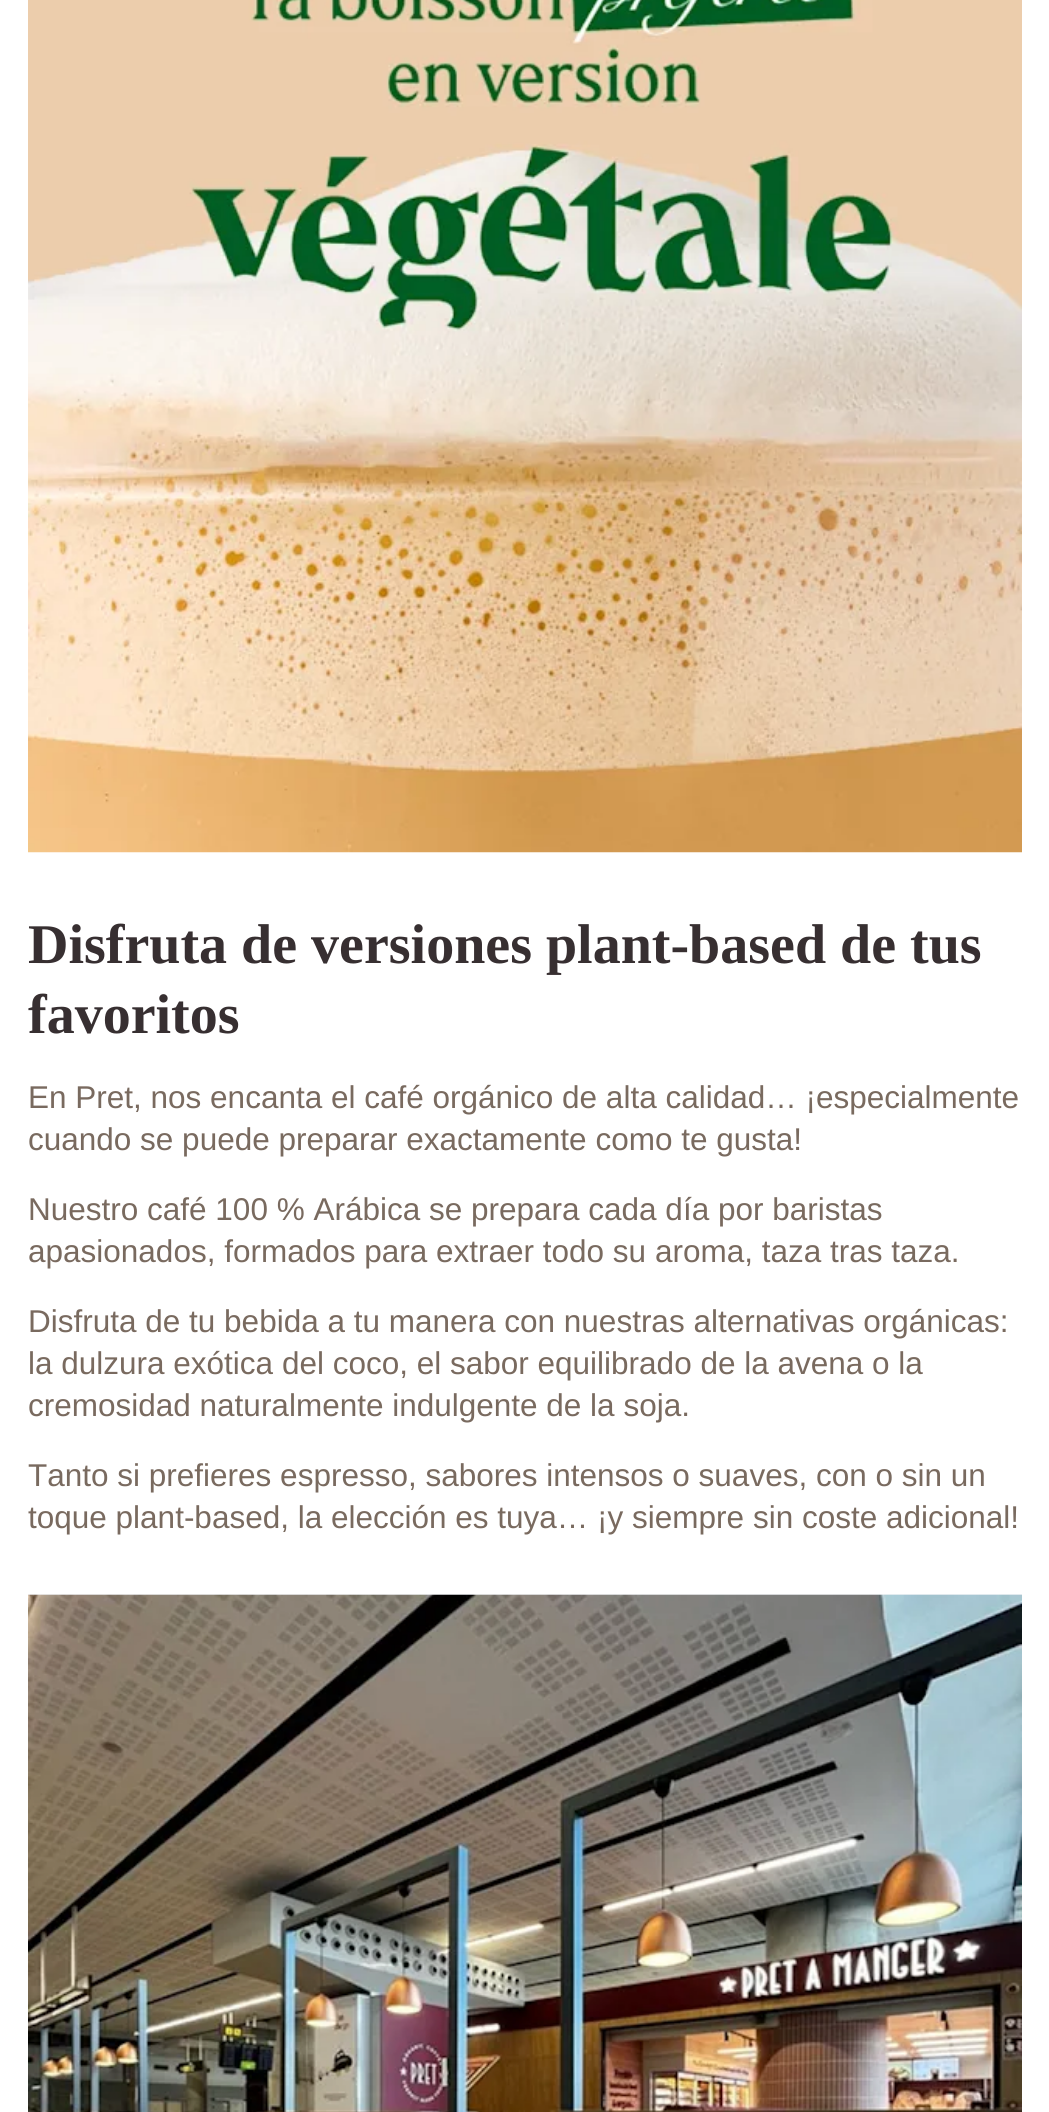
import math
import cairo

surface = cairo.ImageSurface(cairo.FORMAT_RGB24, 1049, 2112)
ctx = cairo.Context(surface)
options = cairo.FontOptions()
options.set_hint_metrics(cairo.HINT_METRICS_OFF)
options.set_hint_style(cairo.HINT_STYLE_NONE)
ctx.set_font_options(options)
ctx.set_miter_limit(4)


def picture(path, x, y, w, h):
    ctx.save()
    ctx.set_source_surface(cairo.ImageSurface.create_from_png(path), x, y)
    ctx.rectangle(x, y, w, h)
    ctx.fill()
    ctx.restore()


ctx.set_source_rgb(1, 1, 1)
ctx.paint()
picture("img1.png", 28, 0, 994, 853)
ctx.select_font_face("Liberation Serif", cairo.FONT_SLANT_NORMAL, cairo.FONT_WEIGHT_BOLD)
ctx.set_font_size(56)
ctx.set_source_rgb(0.216, 0.184, 0.192)
ctx.move_to(28, 963)
ctx.show_text("Disfruta de versiones plant-based de tus")
ctx.move_to(28, 1033)
ctx.show_text("favoritos")
ctx.select_font_face("Liberation Sans")
ctx.set_font_size(31.5)
ctx.set_source_rgb(0.475, 0.416, 0.373)
ctx.move_to(28, 1108)
ctx.show_text("En Pret, nos encanta el café orgánico de alta calidad… ¡especialmente")
ctx.move_to(28, 1150)
ctx.show_text("cuando se puede preparar exactamente como te gusta!")
ctx.move_to(28, 1220)
ctx.show_text("Nuestro café 100 % Arábica se prepara cada día por baristas")
ctx.move_to(28, 1262)
ctx.show_text("apasionados, formados para extraer todo su aroma, taza tras taza.")
ctx.move_to(28, 1332)
ctx.show_text("Disfruta de tu bebida a tu manera con nuestras alternativas orgánicas:")
ctx.move_to(28, 1374)
ctx.show_text("la dulzura exótica del coco, el sabor equilibrado de la avena o la")
ctx.move_to(28, 1416)
ctx.show_text("cremosidad naturalmente indulgente de la soja.")
ctx.move_to(28, 1486)
ctx.show_text("Tanto si prefieres espresso, sabores intensos o suaves, con o sin un")
ctx.move_to(28, 1528)
ctx.show_text("toque plant-based, la elección es tuya… ¡y siempre sin coste adicional!")
ctx.set_source_rgb(0.953, 0.957, 0.965)
ctx.rectangle(28, 1594, 994, 1)
ctx.fill()
picture("img2.png", 28, 1594, 994, 518)
surface.write_to_png("page.png")
